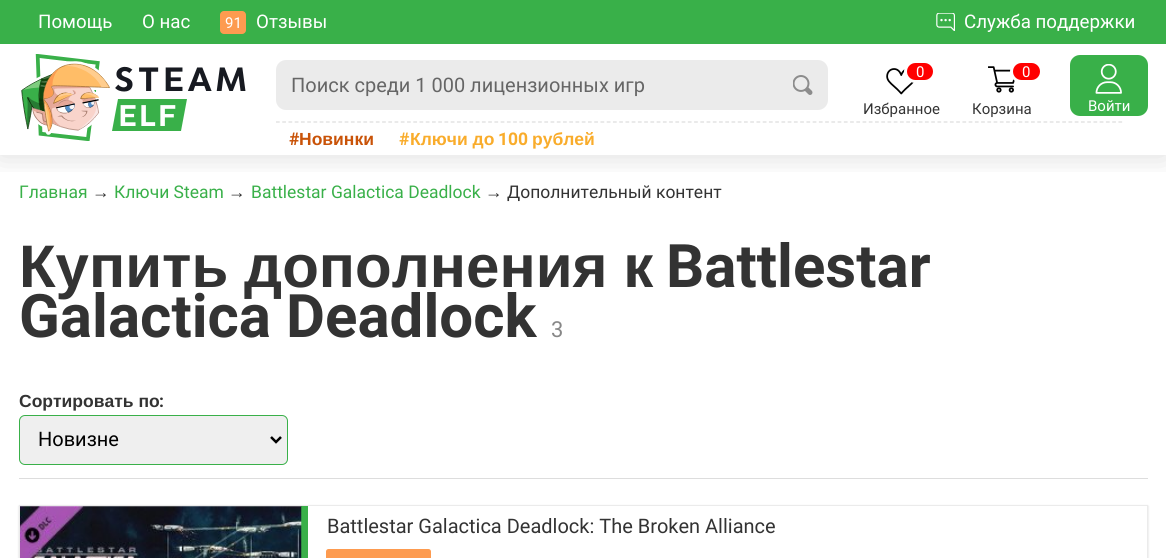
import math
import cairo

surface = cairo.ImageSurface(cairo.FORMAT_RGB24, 1166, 558)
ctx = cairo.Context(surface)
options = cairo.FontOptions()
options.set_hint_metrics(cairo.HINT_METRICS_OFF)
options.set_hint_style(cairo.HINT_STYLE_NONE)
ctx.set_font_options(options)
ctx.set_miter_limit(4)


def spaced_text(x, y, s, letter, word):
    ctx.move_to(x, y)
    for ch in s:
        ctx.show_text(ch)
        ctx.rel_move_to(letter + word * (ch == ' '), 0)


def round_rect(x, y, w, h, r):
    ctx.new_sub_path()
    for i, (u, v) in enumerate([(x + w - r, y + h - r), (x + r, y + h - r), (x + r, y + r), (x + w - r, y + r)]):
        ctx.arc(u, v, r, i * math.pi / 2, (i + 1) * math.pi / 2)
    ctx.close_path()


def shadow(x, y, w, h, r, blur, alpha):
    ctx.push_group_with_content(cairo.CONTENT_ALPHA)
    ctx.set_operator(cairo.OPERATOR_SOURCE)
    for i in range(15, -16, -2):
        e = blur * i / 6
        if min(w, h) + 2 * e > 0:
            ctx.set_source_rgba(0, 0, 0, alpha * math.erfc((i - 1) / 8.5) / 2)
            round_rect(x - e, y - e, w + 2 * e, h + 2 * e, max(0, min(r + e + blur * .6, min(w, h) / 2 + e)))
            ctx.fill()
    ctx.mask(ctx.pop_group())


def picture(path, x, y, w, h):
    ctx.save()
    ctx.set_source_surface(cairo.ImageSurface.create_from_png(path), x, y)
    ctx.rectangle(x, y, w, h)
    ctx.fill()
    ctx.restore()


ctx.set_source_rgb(1, 1, 1)
ctx.paint()
ctx.save()
ctx.rectangle(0, 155, 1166, 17)
ctx.clip()
ctx.set_source_rgb(0, 0, 0)
shadow(0, 1, 1166, 155, 0, 15, 0.14)
ctx.restore()
ctx.set_source_rgb(0.224, 0.69, 0.286)
ctx.rectangle(0, 0, 1166, 44)
ctx.fill()
ctx.select_font_face("Roboto")
ctx.set_font_size(18.75)
ctx.set_source_rgb(1, 1, 1)
ctx.move_to(38, 28)
ctx.show_text("Помощь")
ctx.move_to(142, 28)
ctx.show_text("О нас")
ctx.set_source_rgb(0.992, 0.608, 0.314)
round_rect(220, 11, 26, 23, 4)
ctx.fill()
ctx.set_font_size(15)
ctx.set_source_rgb(1, 1, 1)
ctx.move_to(225, 28)
ctx.show_text("91")
ctx.set_font_size(18.75)
ctx.move_to(256, 28)
ctx.show_text("Отзывы")
picture("img1.png", 936, 13, 19, 18)
ctx.move_to(964, 28)
ctx.show_text("Служба поддержки")
picture("img2.png", 21, 54, 89, 87)
ctx.select_font_face("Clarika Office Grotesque", cairo.FONT_SLANT_NORMAL, cairo.FONT_WEIGHT_BOLD)
ctx.set_font_size(36)
ctx.set_source_rgb(0.09, 0.102, 0.129)
spaced_text(114, 91, "STEAM", 3, 0)
ctx.set_source_rgb(0.224, 0.69, 0.286)
ctx.new_path()
ctx.move_to(118, 99)
ctx.line_to(187, 99)
ctx.line_to(181, 131)
ctx.line_to(112, 131)
ctx.close_path()
ctx.fill()
ctx.set_font_size(32)
ctx.set_source_rgb(1, 1, 1)
spaced_text(118, 126, "ELF", 1.5, 0)
ctx.set_source_rgb(0.918, 0.918, 0.918)
round_rect(276, 60, 552, 50, 10)
ctx.fill()
ctx.select_font_face("Roboto")
ctx.set_font_size(20)
ctx.set_source_rgb(0.4, 0.4, 0.4)
ctx.move_to(291, 92)
ctx.show_text("Поиск среди 1 000 лицензионных игр")
picture("img3.png", 793, 75, 20, 20)
picture("img4.png", 886, 68, 28, 27)
ctx.set_source_rgb(1, 0, 0)
round_rect(905.5, 61.5, 29, 20, 10)
ctx.fill_preserve()
ctx.set_source_rgb(1, 1, 1)
ctx.set_line_width(3)
ctx.stroke()
ctx.set_font_size(15)
ctx.move_to(916, 77)
ctx.show_text("0")
ctx.set_source_rgb(0.2, 0.2, 0.2)
ctx.move_to(863, 114)
ctx.show_text("Избранное")
picture("img5.png", 988, 66, 27, 27)
ctx.set_source_rgb(1, 0, 0)
round_rect(1011.5, 61.5, 30, 20, 10)
ctx.fill_preserve()
ctx.set_source_rgb(1, 1, 1)
ctx.stroke()
ctx.move_to(1022, 77)
ctx.show_text("0")
ctx.set_source_rgb(0.2, 0.2, 0.2)
ctx.move_to(972, 114)
ctx.show_text("Корзина")
ctx.set_source_rgb(0.224, 0.69, 0.286)
round_rect(1071.5, 56.5, 75, 58, 8.5)
ctx.fill_preserve()
ctx.stroke()
picture("img6.png", 1095, 64, 27, 30)
ctx.set_source_rgb(1, 1, 1)
ctx.move_to(1088, 111)
ctx.show_text("Войти")
ctx.new_path()
ctx.move_to(276, 122)
ctx.line_to(1122.5, 122)
ctx.set_source_rgb(0.867, 0.867, 0.867)
ctx.set_line_width(1.2)
ctx.set_dash([3.75, 2.49])
ctx.stroke()
ctx.select_font_face("Roboto", cairo.FONT_SLANT_NORMAL, cairo.FONT_WEIGHT_BOLD)
ctx.set_font_size(17.5)
ctx.set_source_rgb(0.788, 0.325, 0.035)
ctx.move_to(289, 145)
ctx.show_text("#")
ctx.select_font_face("Liberation Sans", cairo.FONT_SLANT_NORMAL, cairo.FONT_WEIGHT_BOLD)
ctx.move_to(299, 145)
ctx.show_text("Новинки")
ctx.select_font_face("Roboto", cairo.FONT_SLANT_NORMAL, cairo.FONT_WEIGHT_BOLD)
ctx.set_source_rgb(0.976, 0.675, 0.169)
ctx.move_to(399, 145)
ctx.show_text("#")
ctx.select_font_face("Liberation Sans", cairo.FONT_SLANT_NORMAL, cairo.FONT_WEIGHT_BOLD)
ctx.move_to(410, 145)
ctx.show_text("Ключи до")
ctx.select_font_face("Roboto", cairo.FONT_SLANT_NORMAL, cairo.FONT_WEIGHT_BOLD)
ctx.move_to(498, 145)
ctx.show_text("100")
ctx.select_font_face("Liberation Sans", cairo.FONT_SLANT_NORMAL, cairo.FONT_WEIGHT_BOLD)
ctx.move_to(532, 145)
ctx.show_text("рублей")
ctx.select_font_face("Roboto")
ctx.set_source_rgb(0.224, 0.69, 0.286)
ctx.move_to(19, 198)
ctx.show_text("Главная")
ctx.select_font_face("Liberation Sans")
ctx.set_source_rgb(0.2, 0.2, 0.2)
ctx.move_to(92, 198)
ctx.show_text("→")
ctx.select_font_face("Roboto")
ctx.set_source_rgb(0.224, 0.69, 0.286)
ctx.move_to(114, 198)
ctx.show_text("Ключи Steam")
ctx.select_font_face("Liberation Sans")
ctx.set_source_rgb(0.2, 0.2, 0.2)
ctx.move_to(228, 198)
ctx.show_text("→")
ctx.select_font_face("Roboto")
ctx.set_source_rgb(0.224, 0.69, 0.286)
ctx.move_to(251, 198)
ctx.show_text("Battlestar Galactica Deadlock")
ctx.select_font_face("Liberation Sans")
ctx.set_source_rgb(0.2, 0.2, 0.2)
ctx.move_to(485, 198)
ctx.show_text("→")
ctx.select_font_face("Roboto")
ctx.move_to(507, 198)
ctx.show_text("Дополнительный контент")
ctx.select_font_face("Liberation Sans", cairo.FONT_SLANT_NORMAL, cairo.FONT_WEIGHT_BOLD)
ctx.set_font_size(60)
spaced_text(19, 287, "Купить дополнения к", 0, -1)
ctx.select_font_face("Roboto", cairo.FONT_SLANT_NORMAL, cairo.FONT_WEIGHT_BOLD)
ctx.move_to(666, 287)
ctx.show_text("Battlestar")
ctx.move_to(19, 337)
ctx.show_text("Galactica Deadlock")
ctx.select_font_face("Roboto")
ctx.set_font_size(22)
ctx.set_source_rgb(0.529, 0.529, 0.529)
ctx.move_to(551, 337)
ctx.show_text("3")
ctx.set_source_rgb(0.867, 0.867, 0.867)
ctx.rectangle(19, 478, 1129, 1)
ctx.fill()
ctx.select_font_face("Liberation Sans", cairo.FONT_SLANT_NORMAL, cairo.FONT_WEIGHT_BOLD)
ctx.set_font_size(17.5)
ctx.set_source_rgb(0.2, 0.2, 0.2)
ctx.move_to(19, 407)
ctx.show_text("Сортировать по")
ctx.select_font_face("Roboto", cairo.FONT_SLANT_NORMAL, cairo.FONT_WEIGHT_BOLD)
ctx.move_to(159, 407)
ctx.show_text(":")
ctx.set_source_rgb(0.937, 0.937, 0.937)
round_rect(19.5, 415.5, 268, 49, 5.5)
ctx.fill_preserve()
ctx.set_source_rgb(0.224, 0.69, 0.286)
ctx.set_line_width(1)
ctx.set_dash([])
ctx.stroke()
ctx.new_path()
ctx.move_to(271, 437)
ctx.line_to(276, 442)
ctx.line_to(281, 437)
ctx.set_source_rgb(0, 0, 0)
ctx.set_line_width(2.5)
ctx.stroke()
ctx.select_font_face("Roboto")
ctx.set_font_size(20)
ctx.move_to(38, 446)
ctx.show_text("Новизне")
ctx.save()
ctx.set_fill_rule(cairo.FILL_RULE_EVEN_ODD)
ctx.new_path()
ctx.move_to(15, 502)
ctx.line_to(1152, 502)
ctx.line_to(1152, 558)
ctx.line_to(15, 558)
ctx.close_path()
ctx.move_to(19, 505)
ctx.line_to(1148, 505)
ctx.line_to(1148, 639)
ctx.line_to(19, 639)
ctx.close_path()
ctx.clip()
ctx.set_source_rgb(0, 0, 0)
shadow(19, 506, 1129, 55, 0, 1, 0.16)
ctx.restore()
ctx.rectangle(19.5, 505.5, 1128, 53)
ctx.set_source_rgb(0.918, 0.918, 0.918)
ctx.set_line_width(1)
ctx.stroke()
ctx.set_source_rgb(0.224, 0.69, 0.286)
ctx.rectangle(301, 506, 7, 52)
ctx.fill()
picture("img7.png", 20, 506, 282, 52)
ctx.set_source_rgb(0.2, 0.2, 0.2)
ctx.move_to(327, 533)
ctx.show_text("Battlestar Galactica Deadlock: The Broken Alliance")
ctx.set_source_rgb(0.992, 0.608, 0.314)
round_rect(326, 549, 105, 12, 2.5)
ctx.fill()
surface.write_to_png("page.png")
